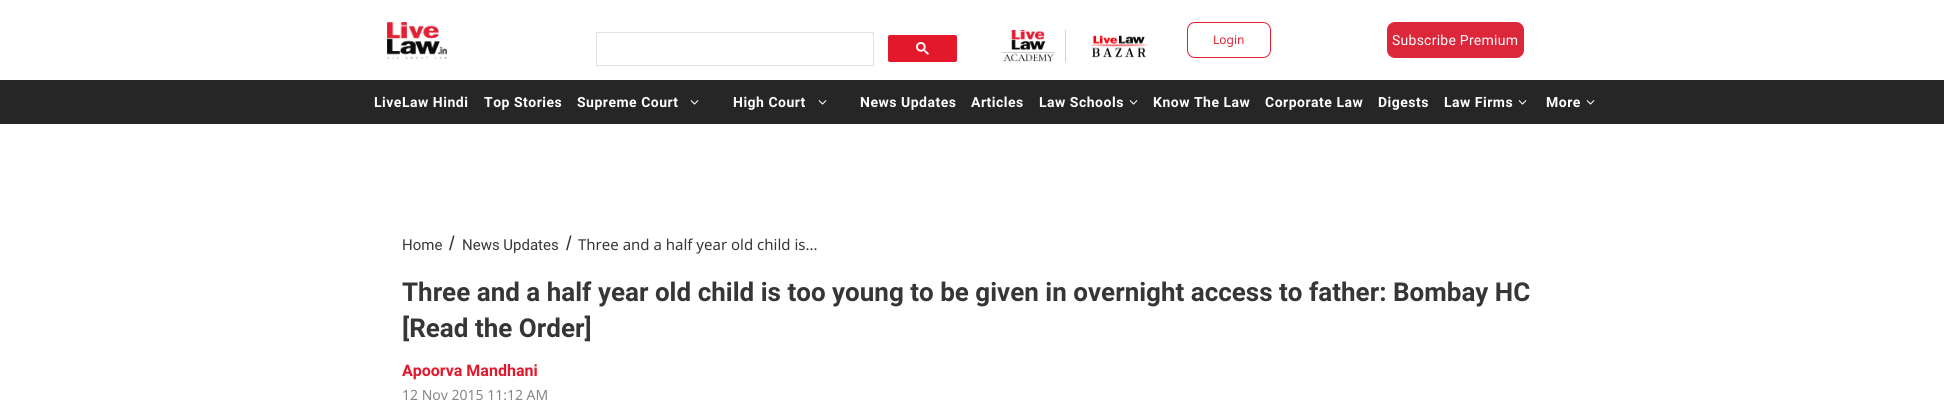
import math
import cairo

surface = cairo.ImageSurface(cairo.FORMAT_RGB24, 1944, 400)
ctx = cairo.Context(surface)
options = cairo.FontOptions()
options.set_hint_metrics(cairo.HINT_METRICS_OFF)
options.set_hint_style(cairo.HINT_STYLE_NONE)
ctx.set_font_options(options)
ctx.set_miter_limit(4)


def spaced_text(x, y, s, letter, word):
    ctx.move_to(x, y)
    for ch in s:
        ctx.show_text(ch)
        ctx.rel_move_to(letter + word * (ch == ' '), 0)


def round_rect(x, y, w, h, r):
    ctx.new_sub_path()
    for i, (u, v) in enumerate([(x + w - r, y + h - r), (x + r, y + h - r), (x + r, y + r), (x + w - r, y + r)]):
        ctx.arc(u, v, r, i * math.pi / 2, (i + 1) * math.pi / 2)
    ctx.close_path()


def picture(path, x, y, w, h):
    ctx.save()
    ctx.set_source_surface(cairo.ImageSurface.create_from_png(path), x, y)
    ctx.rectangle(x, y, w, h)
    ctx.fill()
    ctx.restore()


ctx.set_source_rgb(1, 1, 1)
ctx.paint()
picture("img1.png", 387, 22, 60, 37)
ctx.rectangle(596.5, 32.5, 277, 33)
ctx.set_source_rgb(0.875, 0.882, 0.898)
ctx.set_line_width(1)
ctx.stroke()
ctx.set_source_rgb(0.89, 0.094, 0.169)
round_rect(888.5, 35.5, 68, 26, 1.5)
ctx.fill_preserve()
ctx.stroke()
picture("img2.png", 916, 42, 13, 13)
ctx.set_source_rgb(0.816, 0.82, 0.831)
ctx.rectangle(1065, 30, 1, 32)
ctx.fill()
picture("img3.png", 1002, 30, 53, 32)
picture("img4.png", 1090, 35, 58, 23)
round_rect(1187.5, 22.5, 83, 35, 7.5)
ctx.set_source_rgb(0.886, 0.125, 0.2)
ctx.stroke()
ctx.select_font_face("Noto Sans")
ctx.set_font_size(12)
ctx.move_to(1213, 44)
ctx.show_text("Login")
ctx.set_source_rgb(0.863, 0.149, 0.224)
round_rect(1387, 22, 137, 36, 8)
ctx.fill()
ctx.select_font_face("Roboto")
ctx.set_font_size(14)
ctx.set_source_rgb(1, 1, 1)
spaced_text(1392, 45, "Subscribe Premium", 0.25, 0)
ctx.set_source_rgb(0.149, 0.149, 0.149)
ctx.rectangle(0, 80, 1944, 44)
ctx.fill()
ctx.select_font_face("Roboto", cairo.FONT_SLANT_NORMAL, cairo.FONT_WEIGHT_BOLD)
ctx.set_source_rgb(1, 1, 1)
spaced_text(374, 107, "LiveLaw Hindi", 0.5, 0)
spaced_text(484, 107, "Top Stories", 0.5, 0)
spaced_text(577, 107, "Supreme Court", 0.5, 0)
picture("img5.png", 690, 100, 9, 5)
spaced_text(733, 107, "High Court", 0.5, 0)
picture("img5.png", 818, 100, 9, 5)
spaced_text(860, 107, "News Updates", 0.5, 0)
spaced_text(971, 107, "Articles", 0.5, 0)
spaced_text(1039, 107, "Law Schools", 0.5, 0)
picture("img5.png", 1129, 100, 9, 5)
spaced_text(1153, 107, "Know The Law", 0.5, 0)
spaced_text(1265, 107, "Corporate Law", 0.5, 0)
spaced_text(1378, 107, "Digests", 0.5, 0)
spaced_text(1444, 107, "Law Firms", 0.5, 0)
picture("img5.png", 1518, 100, 9, 5)
spaced_text(1546, 107, "More", 0.5, 0)
picture("img5.png", 1586, 100, 9, 5)
ctx.select_font_face("Roboto")
ctx.set_font_size(15)
ctx.set_source_rgb(0.212, 0.212, 0.212)
ctx.move_to(402, 250)
ctx.show_text("Home")
ctx.select_font_face("Liberation Sans")
ctx.set_font_size(20)
ctx.move_to(449, 250)
ctx.show_text("/")
ctx.select_font_face("Roboto")
ctx.set_font_size(15)
ctx.move_to(462, 250)
ctx.show_text("News Updates")
ctx.select_font_face("Liberation Sans")
ctx.set_font_size(20)
ctx.move_to(566, 250)
ctx.show_text("/")
ctx.select_font_face("Noto Sans")
ctx.set_font_size(15)
ctx.move_to(578, 250)
ctx.show_text("Three and a half year old child is...")
ctx.select_font_face("Roboto", cairo.FONT_SLANT_NORMAL, cairo.FONT_WEIGHT_BOLD)
ctx.set_font_size(26)
ctx.move_to(402, 301)
ctx.show_text("Three and a half year old child is too young to be given in overnight access to father: Bombay HC")
ctx.move_to(402, 337)
ctx.show_text("[Read the Order]")
ctx.set_font_size(16)
ctx.set_source_rgb(0.894, 0.094, 0.173)
ctx.move_to(402, 376)
ctx.show_text("Apoorva Mandhani")
ctx.select_font_face("Noto Sans")
ctx.set_font_size(14)
ctx.set_source_rgb(0.529, 0.529, 0.529)
ctx.move_to(402, 400)
ctx.show_text("12 Nov 2015 11:12 AM")
surface.write_to_png("page.png")
